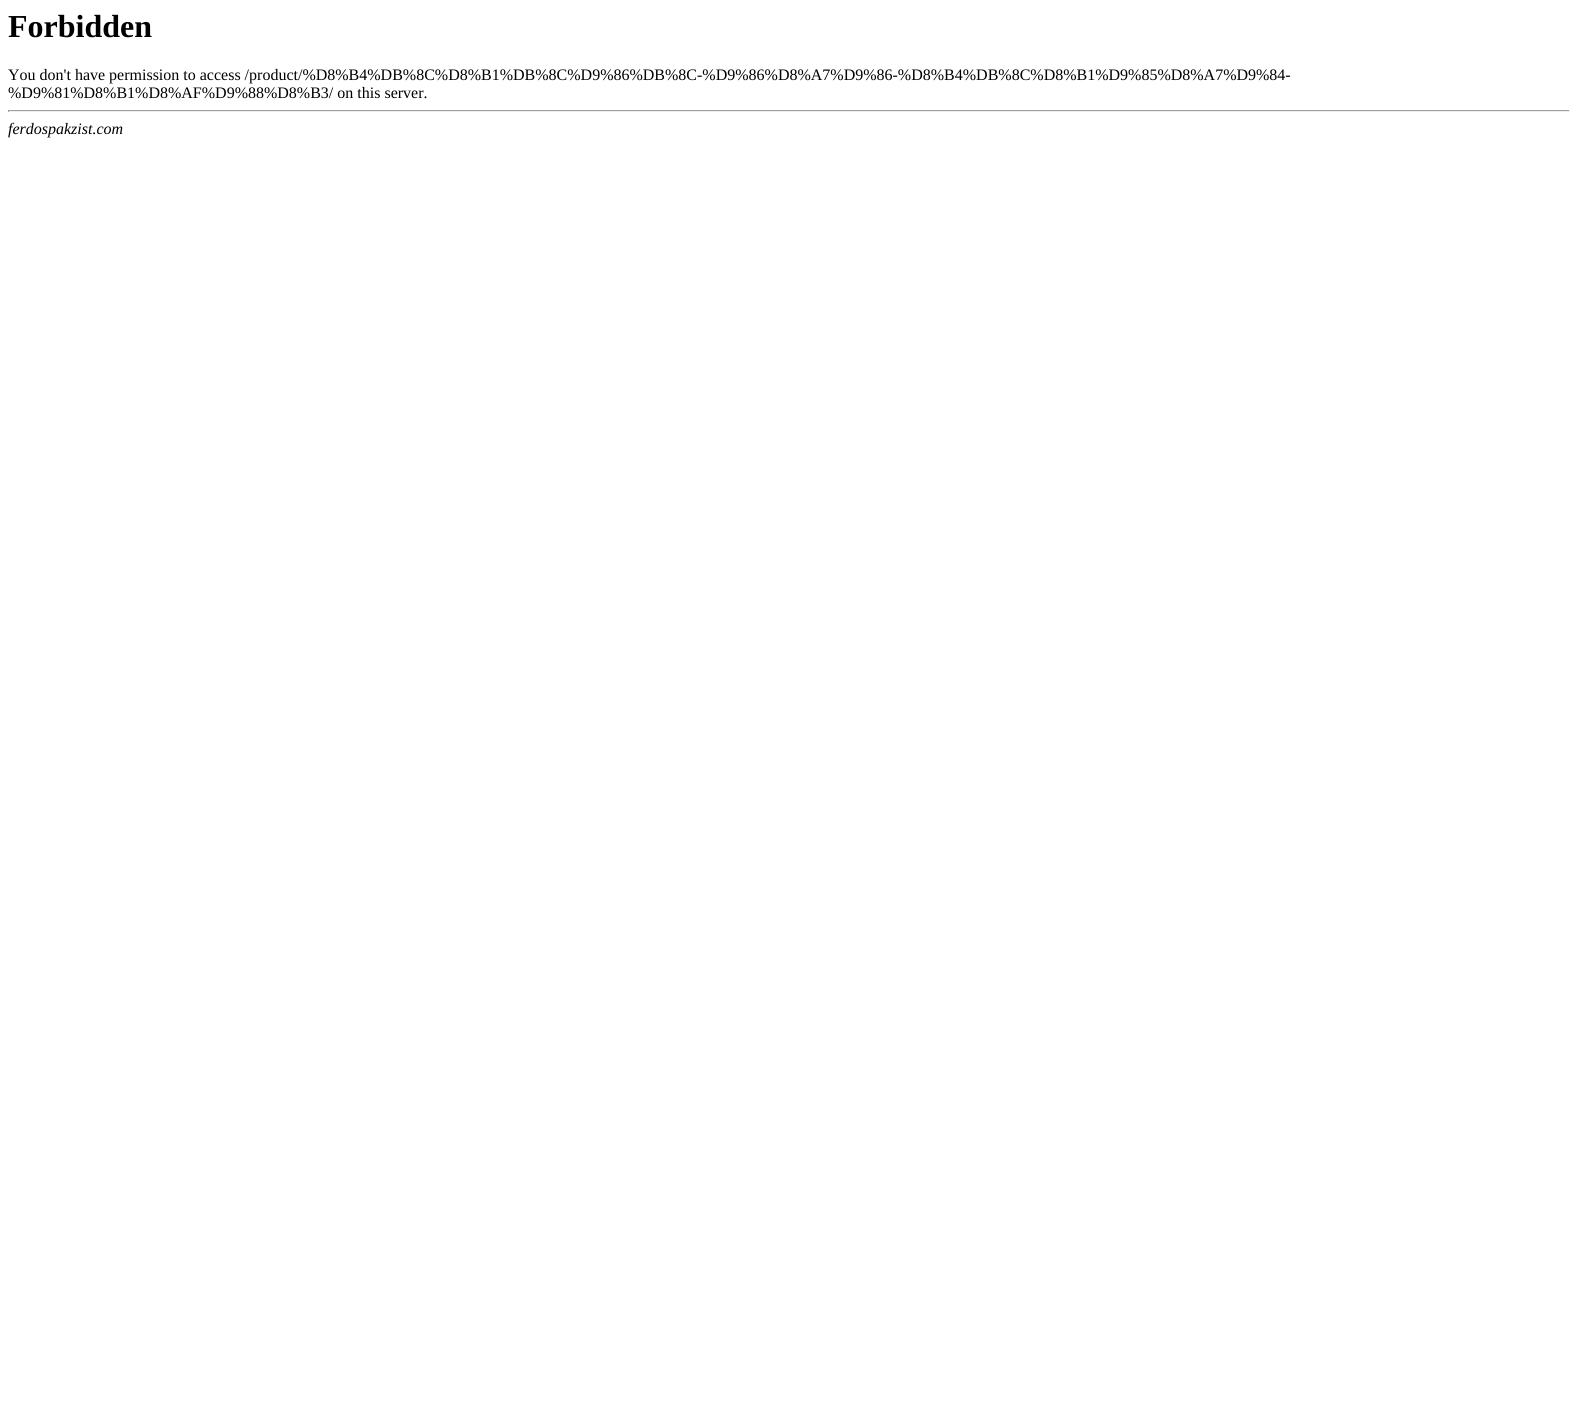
import math
import cairo

surface = cairo.ImageSurface(cairo.FORMAT_RGB24, 1578, 1409)
ctx = cairo.Context(surface)
options = cairo.FontOptions()
options.set_hint_metrics(cairo.HINT_METRICS_OFF)
options.set_hint_style(cairo.HINT_STYLE_NONE)
ctx.set_font_options(options)
ctx.set_miter_limit(4)


ctx.set_source_rgb(1, 1, 1)
ctx.paint()
ctx.select_font_face("Liberation Serif", cairo.FONT_SLANT_NORMAL, cairo.FONT_WEIGHT_BOLD)
ctx.set_font_size(32)
ctx.set_source_rgb(0, 0, 0)
ctx.move_to(8, 37)
ctx.show_text("Forbidden")
ctx.select_font_face("Liberation Serif")
ctx.set_font_size(16)
ctx.move_to(8, 80)
ctx.show_text("You don't have permission to access /product/%D8%B4%DB%8C%D8%B1%DB%8C%D9%86%DB%8C-%D9%86%D8%A7%D9%86-%D8%B4%DB%8C%D8%B1%D9%85%D8%A7%D9%84-")
ctx.move_to(8, 98)
ctx.show_text("%D9%81%D8%B1%D8%AF%D9%88%D8%B3/ on this server.")
ctx.set_source_rgb(0.624, 0.624, 0.624)
ctx.rectangle(8, 110, 1562, 1)
ctx.fill()
ctx.set_source_rgb(0.933, 0.933, 0.933)
ctx.rectangle(1569, 110, 1, 2)
ctx.fill()
ctx.rectangle(8, 111, 1562, 1)
ctx.fill()
ctx.set_source_rgb(0.624, 0.624, 0.624)
ctx.rectangle(8, 110, 1, 2)
ctx.fill()
ctx.select_font_face("Liberation Serif", cairo.FONT_SLANT_ITALIC)
ctx.set_source_rgb(0, 0, 0)
ctx.move_to(8, 134)
ctx.show_text("ferdospakzist.com")
surface.write_to_png("page.png")
